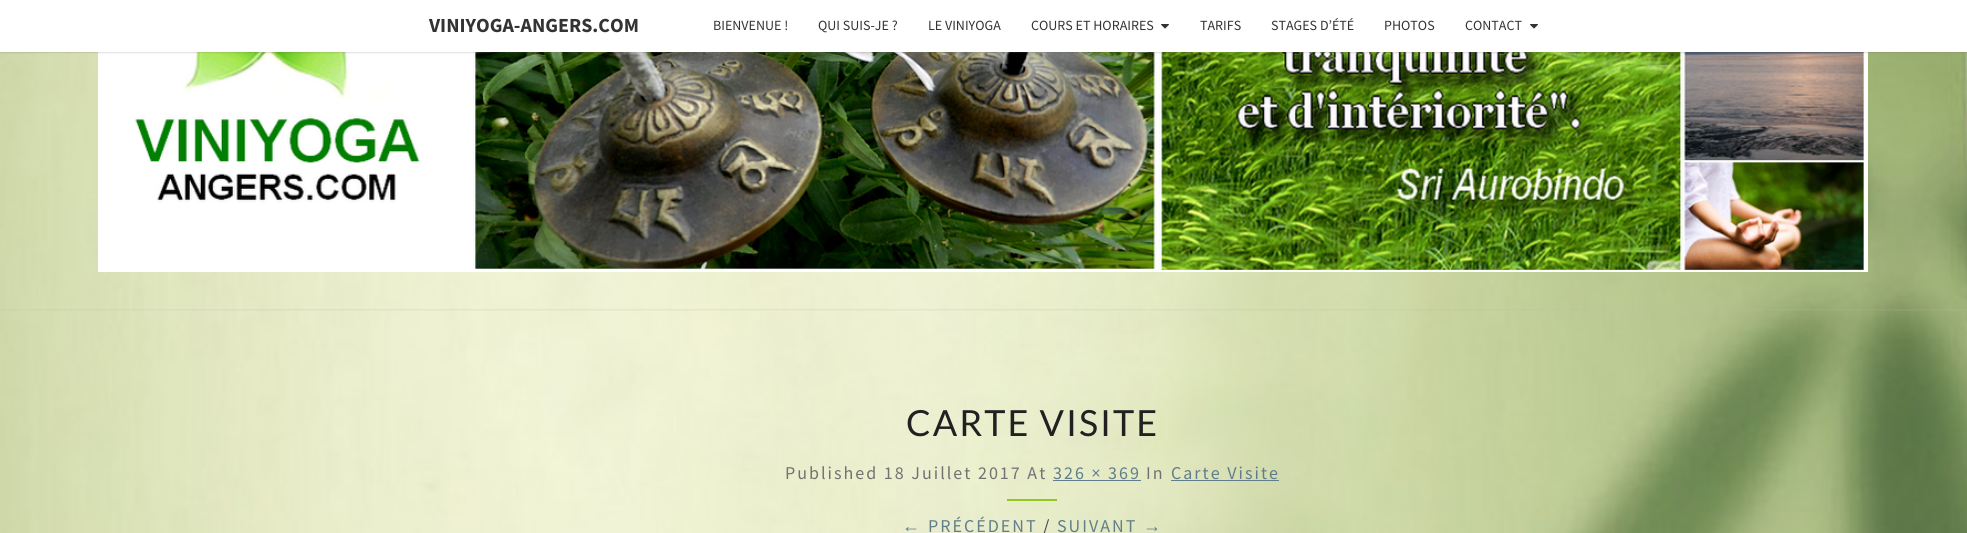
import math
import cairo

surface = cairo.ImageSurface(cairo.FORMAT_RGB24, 1967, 533)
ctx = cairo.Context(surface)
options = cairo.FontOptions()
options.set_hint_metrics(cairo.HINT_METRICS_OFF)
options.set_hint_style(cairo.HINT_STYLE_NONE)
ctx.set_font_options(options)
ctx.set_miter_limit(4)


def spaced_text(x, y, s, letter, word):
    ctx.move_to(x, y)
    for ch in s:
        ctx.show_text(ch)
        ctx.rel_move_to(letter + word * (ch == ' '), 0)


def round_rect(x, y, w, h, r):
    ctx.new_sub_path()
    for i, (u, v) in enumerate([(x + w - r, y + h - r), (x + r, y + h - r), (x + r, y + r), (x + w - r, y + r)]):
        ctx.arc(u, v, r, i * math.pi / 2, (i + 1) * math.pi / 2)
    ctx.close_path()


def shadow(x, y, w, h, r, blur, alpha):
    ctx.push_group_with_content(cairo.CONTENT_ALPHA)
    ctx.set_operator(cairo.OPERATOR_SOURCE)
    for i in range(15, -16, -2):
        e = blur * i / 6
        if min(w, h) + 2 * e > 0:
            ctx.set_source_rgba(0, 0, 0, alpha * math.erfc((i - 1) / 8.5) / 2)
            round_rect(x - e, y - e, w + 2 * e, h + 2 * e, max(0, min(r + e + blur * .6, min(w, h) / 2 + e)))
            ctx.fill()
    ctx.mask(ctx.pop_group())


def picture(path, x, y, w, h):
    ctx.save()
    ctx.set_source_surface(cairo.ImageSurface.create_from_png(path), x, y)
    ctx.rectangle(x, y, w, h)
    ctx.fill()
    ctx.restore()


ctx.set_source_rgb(1, 1, 1)
ctx.paint()
picture("img1.png", 0, 52, 1967, 481)
ctx.save()
ctx.rectangle(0, 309, 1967, 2)
ctx.clip()
ctx.set_source_rgb(0.714, 0.714, 0.714)
shadow(-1, -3, 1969, 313, 0, 1, 0.3)
ctx.restore()
picture("img2.png", 98, 52, 1770, 220)
ctx.set_source_rgb(0.392, 0.392, 0.392)
shadow(0, 1, 1967, 52, 0, 0.5, 0.2)
ctx.set_source_rgb(1, 1, 1)
ctx.rectangle(0, 0, 1967, 52)
ctx.fill()
ctx.select_font_face("Source Sans Pro", cairo.FONT_SLANT_NORMAL, cairo.FONT_WEIGHT_BOLD)
ctx.set_font_size(20)
ctx.set_source_rgb(0.2, 0.2, 0.2)
ctx.move_to(429, 32)
ctx.show_text("VINIYOGA-ANGERS.COM")
ctx.select_font_face("Source Sans Pro")
ctx.set_font_size(14)
ctx.move_to(713, 30)
ctx.show_text("BIENVENUE !")
ctx.move_to(818, 30)
ctx.show_text("QUI SUIS-JE ?")
ctx.move_to(928, 30)
ctx.show_text("LE VINIYOGA")
ctx.move_to(1031, 30)
ctx.show_text("COURS ET HORAIRES")
picture("img3.png", 1161, 24, 8, 5)
ctx.move_to(1200, 30)
ctx.show_text("TARIFS")
ctx.move_to(1271, 30)
ctx.show_text("STAGES D’ÉTÉ")
ctx.move_to(1384, 30)
ctx.show_text("PHOTOS")
ctx.move_to(1465, 30)
ctx.show_text("CONTACT")
picture("img3.png", 1530, 24, 8, 5)
ctx.select_font_face("Lato")
ctx.set_font_size(36)
ctx.set_source_rgb(0.129, 0.129, 0.129)
spaced_text(906, 436, "CARTE VISITE", 2, 0)
ctx.select_font_face("Source Sans Pro")
ctx.set_font_size(18)
ctx.set_source_rgb(0.447, 0.447, 0.447)
spaced_text(785, 479, "Published 18 Juillet 2017 At", 2, 0)
ctx.set_source_rgb(0.376, 0.49, 0.545)
spaced_text(1053, 479, "326 × 369", 2, 0)
ctx.rectangle(1053, 480, 88, 1)
ctx.fill()
ctx.set_source_rgb(0.447, 0.447, 0.447)
spaced_text(1146, 479, "In", 2, 0)
ctx.set_source_rgb(0.376, 0.49, 0.545)
spaced_text(1171, 479, "Carte Visite", 2, 0)
ctx.rectangle(1171, 480, 108, 1)
ctx.fill()
ctx.set_source_rgb(0.58, 0.78, 0.129)
ctx.rectangle(1007, 499, 50, 2)
ctx.fill()
ctx.select_font_face("Liberation Sans")
ctx.set_source_rgb(0.376, 0.49, 0.545)
spaced_text(902, 532, "←", 2, 0)
ctx.select_font_face("Source Sans Pro")
spaced_text(928, 532, "PRÉCÉDENT", 2, 0)
ctx.set_source_rgb(0.259, 0.259, 0.259)
spaced_text(1043, 532, "/", 2, 0)
ctx.set_source_rgb(0.376, 0.49, 0.545)
spaced_text(1057, 532, "SUIVANT", 2, 0)
ctx.select_font_face("Liberation Sans")
spaced_text(1143, 532, "→", 2, 0)
surface.write_to_png("page.png")
